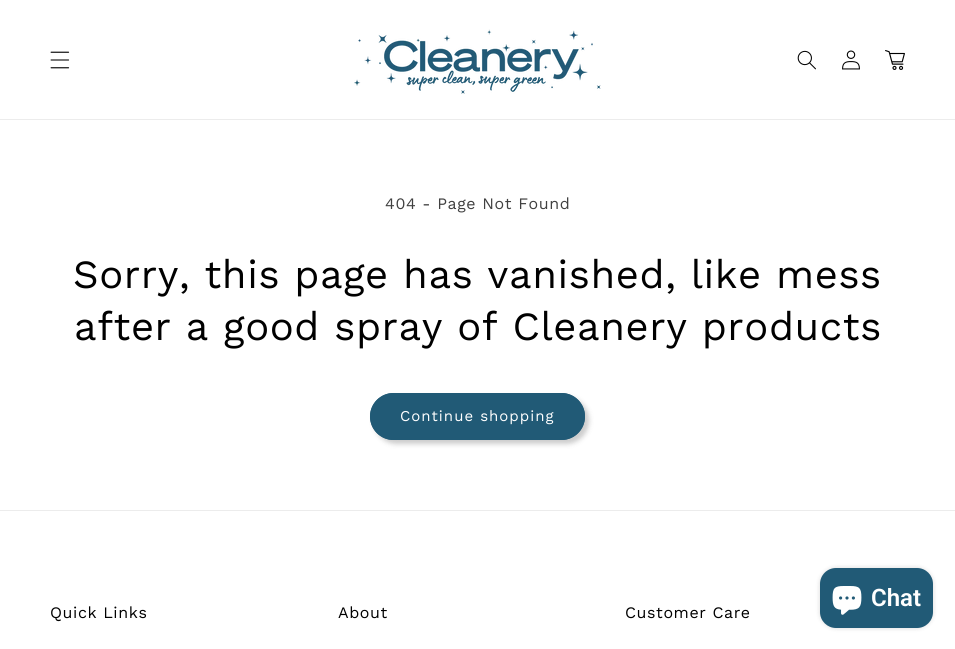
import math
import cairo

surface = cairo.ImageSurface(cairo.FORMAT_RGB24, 955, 649)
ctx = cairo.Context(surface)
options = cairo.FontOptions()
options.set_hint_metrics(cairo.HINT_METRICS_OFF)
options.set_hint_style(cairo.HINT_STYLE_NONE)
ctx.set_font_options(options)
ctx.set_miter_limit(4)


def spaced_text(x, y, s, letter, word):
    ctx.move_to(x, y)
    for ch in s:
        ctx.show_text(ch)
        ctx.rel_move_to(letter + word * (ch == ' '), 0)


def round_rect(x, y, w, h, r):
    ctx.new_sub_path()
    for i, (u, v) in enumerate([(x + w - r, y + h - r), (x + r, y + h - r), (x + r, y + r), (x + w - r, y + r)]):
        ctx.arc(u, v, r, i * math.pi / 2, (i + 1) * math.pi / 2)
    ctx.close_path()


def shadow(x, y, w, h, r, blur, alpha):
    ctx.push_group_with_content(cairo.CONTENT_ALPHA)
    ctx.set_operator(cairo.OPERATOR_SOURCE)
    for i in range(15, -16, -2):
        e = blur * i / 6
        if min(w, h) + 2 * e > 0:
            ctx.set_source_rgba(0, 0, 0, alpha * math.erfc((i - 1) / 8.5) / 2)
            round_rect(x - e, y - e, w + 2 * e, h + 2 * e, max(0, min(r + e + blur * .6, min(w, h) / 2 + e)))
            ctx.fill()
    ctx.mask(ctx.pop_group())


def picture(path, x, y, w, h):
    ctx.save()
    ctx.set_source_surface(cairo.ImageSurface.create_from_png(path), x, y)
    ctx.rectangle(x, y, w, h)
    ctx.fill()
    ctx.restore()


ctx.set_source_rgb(1, 1, 1)
ctx.paint()
ctx.set_source_rgb(0.922, 0.922, 0.922)
ctx.rectangle(0, 119, 955, 1)
ctx.fill()
picture("img1.png", 50, 51, 20, 18)
picture("img2.png", 354, 29, 247, 65)
picture("img3.png", 797, 50, 19, 20)
picture("img4.png", 842, 50, 18, 20)
picture("img5.png", 885, 50, 20, 20)
ctx.select_font_face("Work Sans")
ctx.set_font_size(16)
ctx.set_source_rgb(0.251, 0.251, 0.251)
spaced_text(385, 209, "404 - Page Not Found", 0.6, 0)
ctx.set_font_size(40)
ctx.set_source_rgb(0, 0, 0)
spaced_text(73, 288, "Sorry, this page has vanished, like mess", 0.6, 0)
spaced_text(74, 340, "after a good spray of Cleanery products", 0.6, 0)
ctx.set_source_rgb(0, 0, 0)
shadow(374, 397, 215, 47, 23.5, 2.5, 0.2)
ctx.set_source_rgb(0.129, 0.353, 0.463)
round_rect(370, 393, 215, 47, 23.5)
ctx.fill()
round_rect(370.5, 393.5, 214, 46, 23)
ctx.set_line_width(1)
ctx.stroke()
ctx.set_font_size(15)
ctx.set_source_rgb(1, 1, 1)
spaced_text(400, 421, "Continue shopping", 1, 0)
ctx.set_source_rgb(0, 0, 0)
shadow(820, 568, 113, 60, 16, 2.5, 0.15)
ctx.set_source_rgb(0.129, 0.353, 0.463)
round_rect(820, 568, 113, 60, 16)
ctx.fill()
picture("img6.png", 832, 586, 30, 29)
ctx.select_font_face("Roboto SemiBold")
ctx.set_font_size(24)
ctx.set_source_rgb(1, 1, 1)
ctx.move_to(871, 606)
ctx.show_text("Chat")
ctx.set_source_rgb(0.922, 0.922, 0.922)
ctx.rectangle(0, 510, 955, 1)
ctx.fill()
ctx.select_font_face("Work Sans")
ctx.set_font_size(16)
ctx.set_source_rgb(0, 0, 0)
spaced_text(50, 618, "Quick Links", 0.6, 0)
spaced_text(338, 618, "About", 0.6, 0)
spaced_text(625, 618, "Customer Care", 0.6, 0)
surface.write_to_png("page.png")
